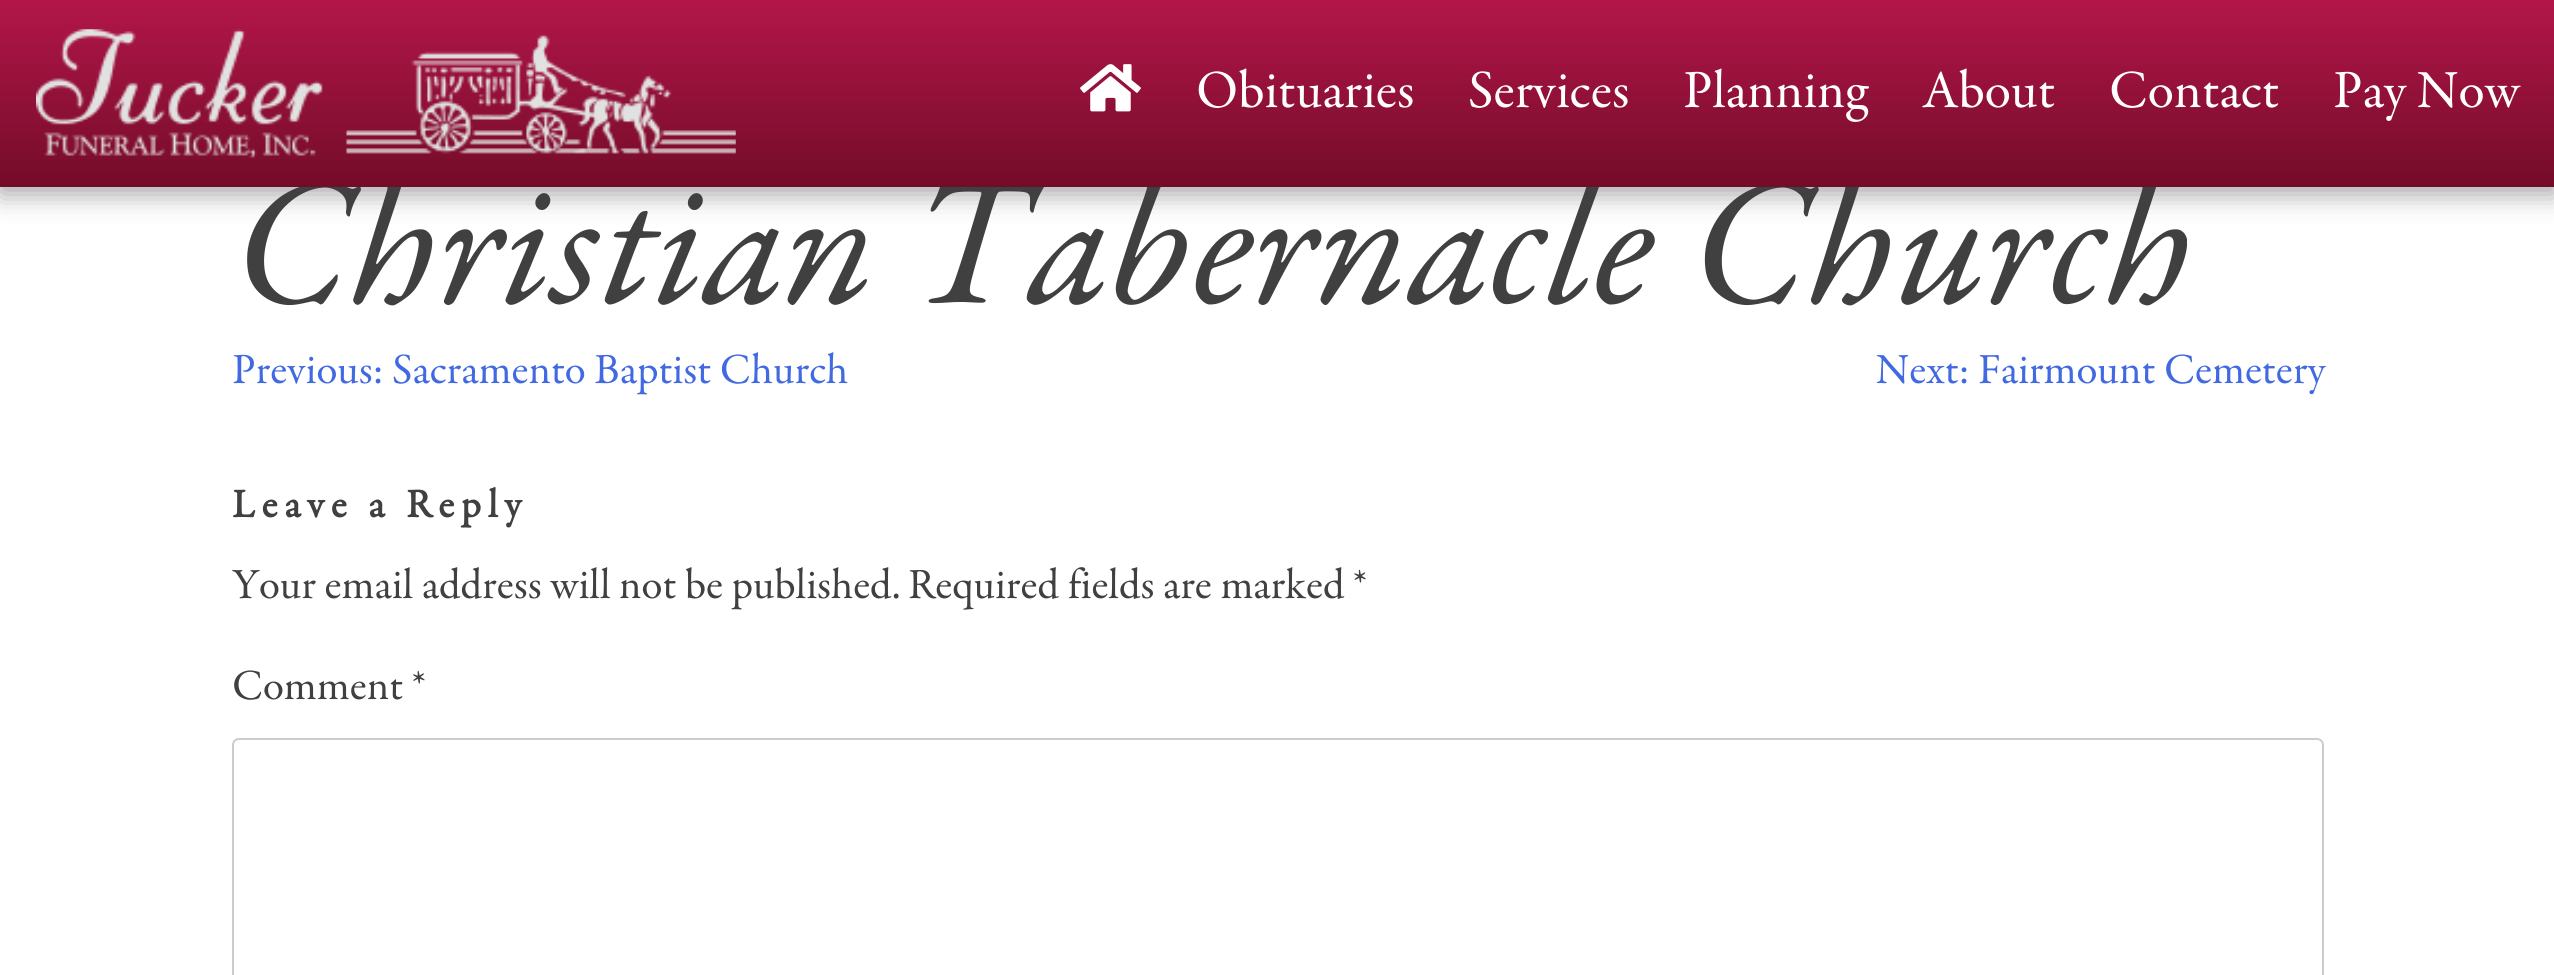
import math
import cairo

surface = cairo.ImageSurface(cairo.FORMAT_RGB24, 2554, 975)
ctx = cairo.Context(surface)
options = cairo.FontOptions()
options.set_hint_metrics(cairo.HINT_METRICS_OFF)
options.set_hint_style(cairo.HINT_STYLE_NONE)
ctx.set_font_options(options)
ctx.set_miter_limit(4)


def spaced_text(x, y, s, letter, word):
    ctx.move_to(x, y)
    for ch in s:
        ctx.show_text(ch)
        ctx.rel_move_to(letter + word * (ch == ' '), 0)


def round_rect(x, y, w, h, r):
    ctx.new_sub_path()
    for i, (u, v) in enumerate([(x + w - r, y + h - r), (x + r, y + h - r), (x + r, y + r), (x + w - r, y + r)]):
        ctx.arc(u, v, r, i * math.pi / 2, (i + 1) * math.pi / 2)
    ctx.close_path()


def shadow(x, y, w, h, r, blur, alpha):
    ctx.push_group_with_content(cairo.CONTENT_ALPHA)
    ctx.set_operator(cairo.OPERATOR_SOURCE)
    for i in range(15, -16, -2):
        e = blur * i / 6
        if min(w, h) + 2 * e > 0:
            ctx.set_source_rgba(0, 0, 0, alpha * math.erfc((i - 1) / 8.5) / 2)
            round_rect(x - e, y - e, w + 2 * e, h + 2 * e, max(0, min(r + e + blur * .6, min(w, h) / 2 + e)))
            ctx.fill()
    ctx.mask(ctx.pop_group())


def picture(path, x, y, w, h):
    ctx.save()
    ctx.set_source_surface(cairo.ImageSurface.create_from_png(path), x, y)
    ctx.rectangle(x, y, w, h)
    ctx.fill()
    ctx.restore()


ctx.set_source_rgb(1, 1, 1)
ctx.paint()
ctx.set_source_rgb(0, 0, 0)
shadow(0, 7, 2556, 187, 0, 13.5, 0.36)
ctx.select_font_face("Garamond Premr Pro", cairo.FONT_SLANT_ITALIC)
ctx.set_font_size(180)
ctx.set_source_rgb(0.251, 0.251, 0.251)
ctx.move_to(232, 302)
ctx.show_text("Christian Tabernacle Church")
gradient = cairo.LinearGradient(1278, 0, 1278, 187)
gradient.add_color_stop_rgba(0, 0.702, 0.086, 0.29, 1)
gradient.add_color_stop_rgba(1, 0.451, 0.047, 0.157, 1)
ctx.set_source(gradient)
ctx.rectangle(0, 0, 2554, 187)
ctx.fill()
picture("img1.png", 36, 29, 700, 129)
picture("img2.png", 1080, 64, 61, 48)
ctx.select_font_face("Garamond Premr Pro")
ctx.set_font_size(54)
ctx.set_source_rgb(1, 1, 1)
ctx.move_to(1196, 107)
ctx.show_text("Obituaries")
ctx.move_to(1468, 107)
ctx.show_text("Services")
ctx.move_to(1683, 107)
ctx.show_text("Planning")
ctx.move_to(1922, 107)
ctx.show_text("About")
ctx.move_to(2109, 107)
ctx.show_text("Contact")
ctx.move_to(2333, 107)
ctx.show_text("Pay Now")
ctx.set_font_size(43.25)
ctx.set_source_rgb(0.255, 0.412, 0.882)
ctx.move_to(232, 383)
ctx.show_text("Previous: Sacramento Baptist Church")
ctx.move_to(1876, 383)
ctx.show_text("Next: Fairmount Cemetery")
ctx.select_font_face("Garamond Premr Pro", cairo.FONT_SLANT_NORMAL, cairo.FONT_WEIGHT_BOLD)
ctx.set_font_size(40.5)
ctx.set_source_rgb(0.251, 0.251, 0.251)
spaced_text(232, 517, "Leave a Reply", 6.75, 0)
ctx.select_font_face("Garamond Premr Pro")
ctx.set_font_size(43.25)
ctx.move_to(232, 598)
ctx.show_text("Your email address will not be published.")
ctx.move_to(908, 598)
ctx.show_text("Required fields are marked *")
ctx.move_to(232, 699)
ctx.show_text("Comment *")
round_rect(233, 739, 2090, 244, 6)
ctx.set_source_rgb(0.8, 0.8, 0.8)
ctx.stroke()
surface.write_to_png("page.png")
